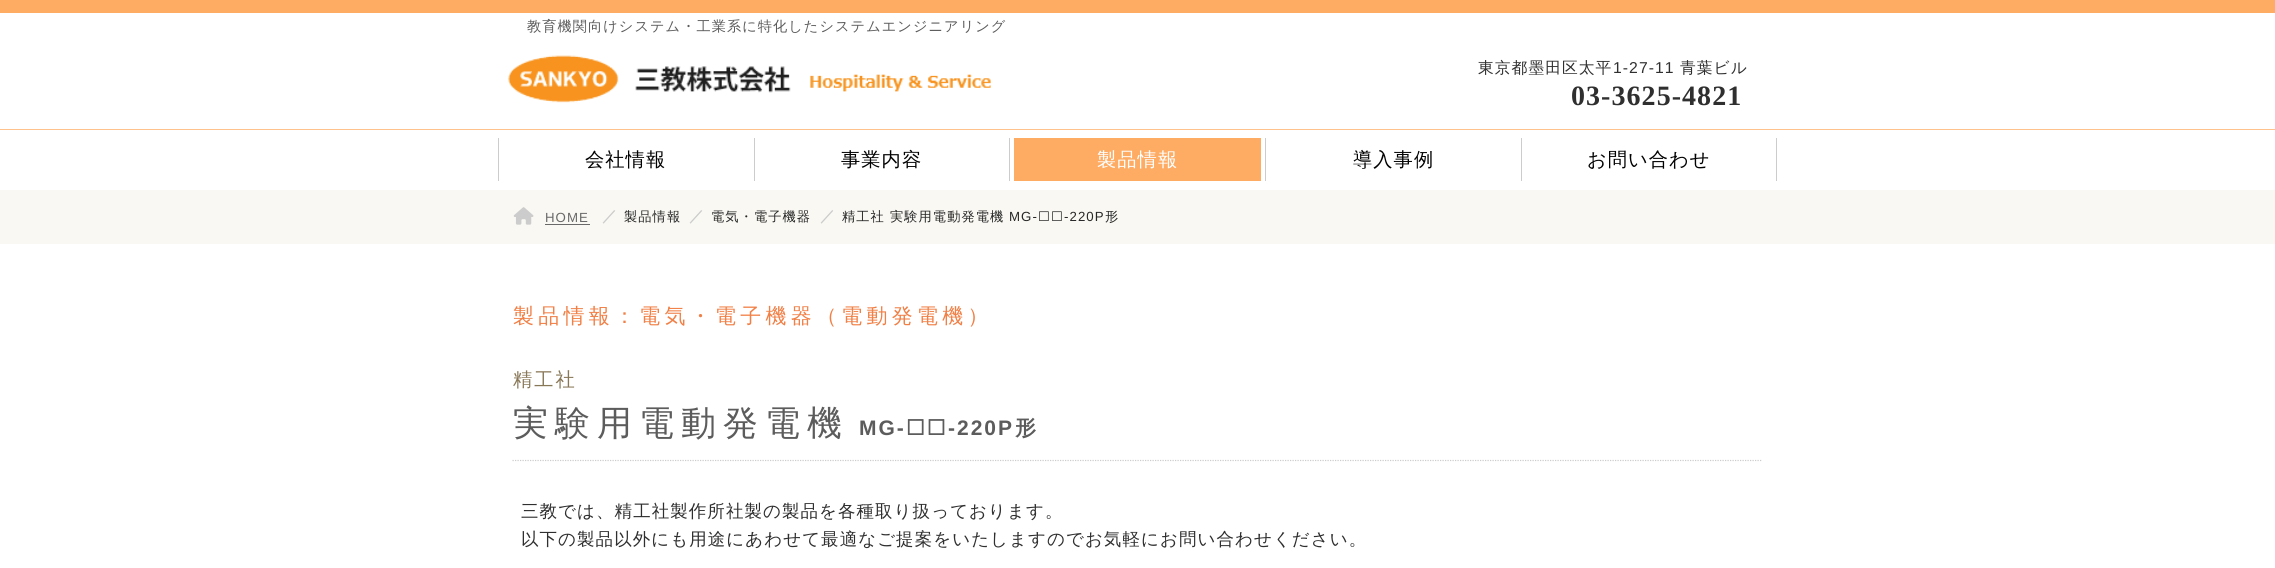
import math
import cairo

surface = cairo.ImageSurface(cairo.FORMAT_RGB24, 2275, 568)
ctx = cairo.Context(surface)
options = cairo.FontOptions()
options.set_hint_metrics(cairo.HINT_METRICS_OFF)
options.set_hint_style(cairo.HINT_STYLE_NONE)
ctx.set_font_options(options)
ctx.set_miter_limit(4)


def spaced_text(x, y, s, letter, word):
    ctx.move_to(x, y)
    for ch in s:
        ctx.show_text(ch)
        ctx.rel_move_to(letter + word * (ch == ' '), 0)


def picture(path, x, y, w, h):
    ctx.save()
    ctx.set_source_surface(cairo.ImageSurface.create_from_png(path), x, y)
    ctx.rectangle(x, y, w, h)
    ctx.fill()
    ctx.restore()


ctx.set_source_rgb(1, 1, 1)
ctx.paint()
ctx.set_source_rgb(0.996, 0.671, 0.388)
ctx.rectangle(0, 0, 2275, 13)
ctx.fill()
ctx.set_source_rgb(1, 0.761, 0.553)
ctx.rectangle(0, 129, 2275, 1)
ctx.fill()
ctx.select_font_face("WenQuanYi Zen Hei Medium")
ctx.set_font_size(14.2)
ctx.set_source_rgb(0.361, 0.361, 0.361)
spaced_text(527, 31, "教育機関向けシステム・工業系に特化したシステムエンジニアリング", 1.05, 0)
picture("img1.png", 508, 55, 483, 48)
ctx.set_font_size(15.75)
ctx.set_source_rgb(0.184, 0.184, 0.184)
spaced_text(1478, 73, "東京都墨田区太平", 1.05, 0)
ctx.select_font_face("Liberation Sans")
spaced_text(1613, 73, "1-27-11", 1.05, 0)
ctx.select_font_face("WenQuanYi Zen Hei Medium")
spaced_text(1680, 73, "青葉ビル", 1.05, 0)
ctx.select_font_face("Liberation Serif", cairo.FONT_SLANT_NORMAL, cairo.FONT_WEIGHT_BOLD)
ctx.set_font_size(28)
spaced_text(1571, 105, "03-3625-4821", 1.05, 0)
ctx.set_source_rgb(0.8, 0.8, 0.8)
ctx.rectangle(498, 138, 1, 43)
ctx.fill()
ctx.select_font_face("WenQuanYi Zen Hei Medium")
ctx.set_font_size(19.25)
ctx.set_source_rgb(0.008, 0.008, 0.008)
spaced_text(585, 166, "会社情報", 1.05, 0)
ctx.set_source_rgb(0.8, 0.8, 0.8)
ctx.rectangle(754, 138, 1, 43)
ctx.fill()
ctx.set_source_rgb(0.008, 0.008, 0.008)
spaced_text(841, 166, "事業内容", 1.05, 0)
ctx.set_source_rgb(0.8, 0.8, 0.8)
ctx.rectangle(1009, 138, 1, 43)
ctx.fill()
ctx.set_source_rgb(0.996, 0.671, 0.388)
ctx.rectangle(1014, 138, 247, 43)
ctx.fill()
ctx.set_source_rgb(1, 1, 1)
spaced_text(1097, 166, "製品情報", 1.05, 0)
ctx.set_source_rgb(0.8, 0.8, 0.8)
ctx.rectangle(1265, 138, 1, 43)
ctx.fill()
ctx.set_source_rgb(0.008, 0.008, 0.008)
spaced_text(1353, 166, "導入事例", 1.05, 0)
ctx.set_source_rgb(0.8, 0.8, 0.8)
ctx.rectangle(1776, 138, 1, 43)
ctx.fill()
ctx.rectangle(1521, 138, 1, 43)
ctx.fill()
ctx.set_source_rgb(0.008, 0.008, 0.008)
spaced_text(1587, 166, "お問い合わせ", 1.05, 0)
ctx.set_source_rgb(0.973, 0.969, 0.953)
ctx.rectangle(0, 190, 2275, 54)
ctx.fill()
picture("img2.png", 513, 207, 21, 18)
ctx.select_font_face("Liberation Sans")
ctx.set_font_size(13.25)
ctx.set_source_rgb(0.412, 0.412, 0.412)
spaced_text(545, 222, "HOME", 1.05, 0)
ctx.rectangle(545, 224, 45, 1)
ctx.fill()
ctx.select_font_face("WenQuanYi Zen Hei", cairo.FONT_SLANT_NORMAL, cairo.FONT_WEIGHT_BOLD)
ctx.set_font_size(15)
ctx.set_source_rgb(0.8, 0.8, 0.8)
spaced_text(602, 221, "／", 1.05, 0)
ctx.select_font_face("WenQuanYi Zen Hei Medium")
ctx.set_font_size(13.25)
ctx.set_source_rgb(0.153, 0.153, 0.153)
spaced_text(624, 221, "製品情報", 1.05, 0)
ctx.select_font_face("WenQuanYi Zen Hei", cairo.FONT_SLANT_NORMAL, cairo.FONT_WEIGHT_BOLD)
ctx.set_font_size(15)
ctx.set_source_rgb(0.8, 0.8, 0.8)
spaced_text(689, 221, "／", 1.05, 0)
ctx.select_font_face("WenQuanYi Zen Hei Medium")
ctx.set_font_size(13.25)
ctx.set_source_rgb(0.153, 0.153, 0.153)
spaced_text(711, 221, "電気・電子機器", 1.05, 0)
ctx.select_font_face("WenQuanYi Zen Hei", cairo.FONT_SLANT_NORMAL, cairo.FONT_WEIGHT_BOLD)
ctx.set_font_size(15)
ctx.set_source_rgb(0.8, 0.8, 0.8)
spaced_text(820, 221, "／", 1.05, 0)
ctx.select_font_face("WenQuanYi Zen Hei Medium")
ctx.set_font_size(13.25)
ctx.set_source_rgb(0.153, 0.153, 0.153)
spaced_text(842, 221, "精工社 実験用電動発電機", 1.05, 0)
ctx.select_font_face("Liberation Sans")
spaced_text(1009, 221, "MG-", 1.05, 0)
ctx.select_font_face("DejaVu Sans")
spaced_text(1038, 221, "☐☐", 1.05, 0)
ctx.select_font_face("Liberation Sans")
spaced_text(1064, 221, "-220P", 1.05, 0)
ctx.select_font_face("WenQuanYi Zen Hei Medium")
spaced_text(1105, 221, "形", 1.05, 0)
ctx.set_font_size(21)
ctx.set_source_rgb(0.945, 0.502, 0.275)
spaced_text(513, 323, "製品情報：電気・電子機器（電動発電機）", 4.25, 0)
ctx.new_path()
ctx.move_to(512.5, 460.5)
ctx.line_to(1762.5, 460.5)
ctx.set_source_rgb(0.8, 0.8, 0.8)
ctx.set_line_width(1.2)
ctx.set_dash([1.25, 1.25])
ctx.stroke()
ctx.set_font_size(19.25)
ctx.set_source_rgb(0.533, 0.467, 0.341)
spaced_text(513, 386, "精工社", 2, 0)
ctx.set_font_size(35)
ctx.set_source_rgb(0.361, 0.361, 0.361)
spaced_text(513, 435, "実験用電動発電機", 7, 0)
ctx.select_font_face("Liberation Sans", cairo.FONT_SLANT_NORMAL, cairo.FONT_WEIGHT_BOLD)
ctx.set_font_size(21)
spaced_text(859, 435, "MG-", 2, 0)
ctx.select_font_face("DejaVu Sans", cairo.FONT_SLANT_NORMAL, cairo.FONT_WEIGHT_BOLD)
spaced_text(906, 435, "☐☐", 2, 0)
ctx.select_font_face("Liberation Sans", cairo.FONT_SLANT_NORMAL, cairo.FONT_WEIGHT_BOLD)
spaced_text(948, 435, "-220P", 2, 0)
ctx.select_font_face("WenQuanYi Zen Hei", cairo.FONT_SLANT_NORMAL, cairo.FONT_WEIGHT_BOLD)
spaced_text(1015, 435, "形", 2, 0)
ctx.select_font_face("WenQuanYi Zen Hei Medium")
ctx.set_font_size(17.5)
ctx.set_source_rgb(0.184, 0.184, 0.184)
spaced_text(521, 517, "三教では、精工社製作所社製の製品を各種取り扱っております。", 1.05, 0)
spaced_text(521, 545, "以下の製品以外にも用途にあわせて最適なご提案をいたしますのでお気軽にお問い合わせください。", 1.05, 0)
surface.write_to_png("page.png")
